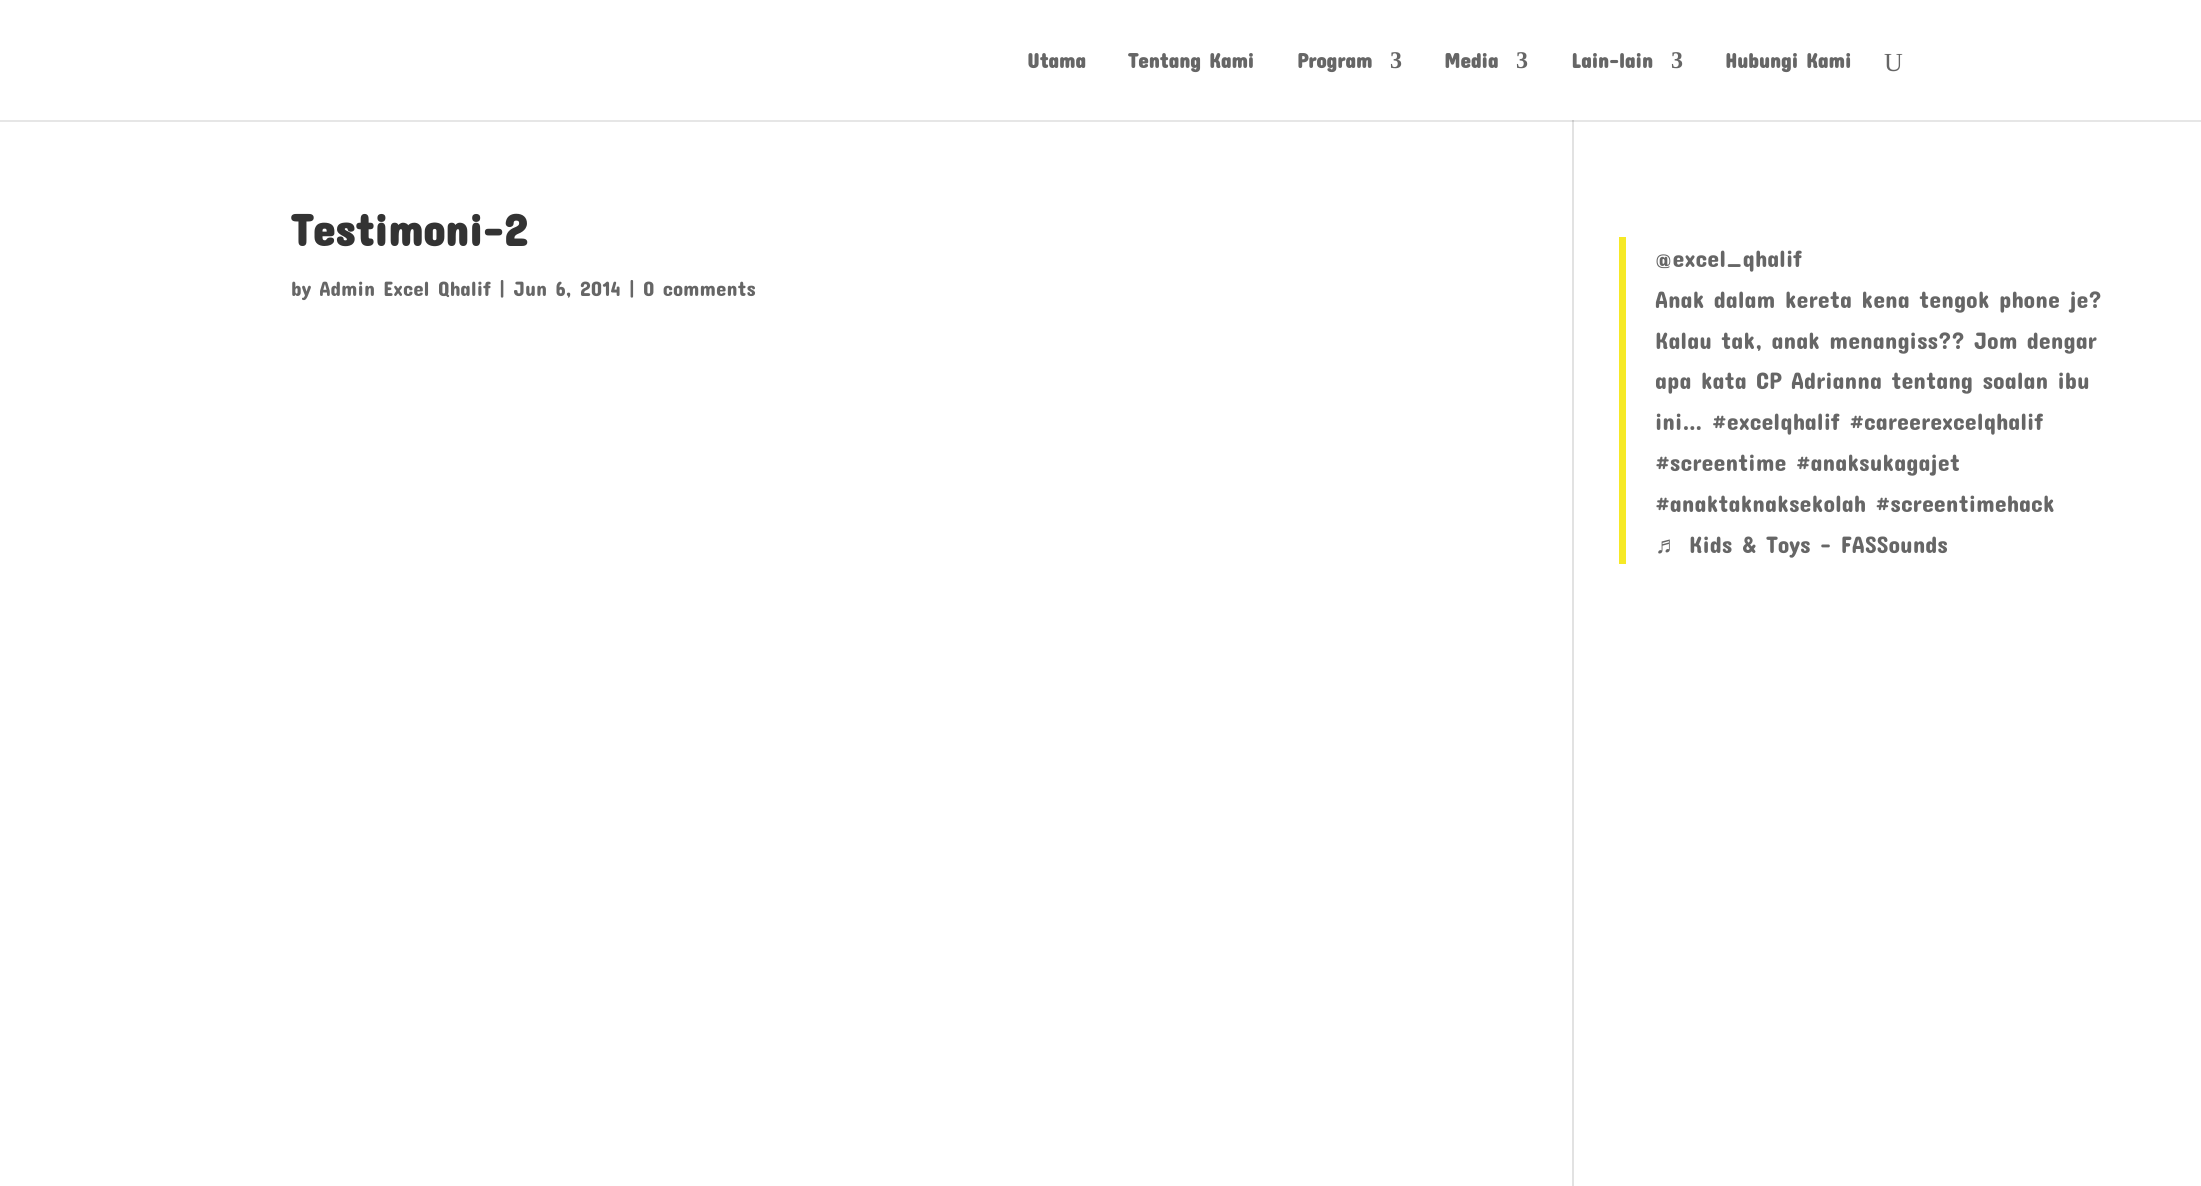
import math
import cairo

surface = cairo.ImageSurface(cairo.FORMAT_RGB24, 2201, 1186)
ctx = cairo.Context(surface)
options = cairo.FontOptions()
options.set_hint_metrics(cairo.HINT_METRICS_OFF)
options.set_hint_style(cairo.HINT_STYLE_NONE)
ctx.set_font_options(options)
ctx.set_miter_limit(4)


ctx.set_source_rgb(1, 1, 1)
ctx.paint()
ctx.select_font_face("Concert One", cairo.FONT_SLANT_NORMAL, cairo.FONT_WEIGHT_BOLD)
ctx.set_font_size(21)
ctx.set_source_rgb(0.4, 0.4, 0.4)
ctx.move_to(1027, 68)
ctx.show_text("Utama")
ctx.move_to(1128, 68)
ctx.show_text("Tentang Kami")
ctx.move_to(1297, 68)
ctx.show_text("Program")
ctx.select_font_face("Liberation Serif", cairo.FONT_SLANT_NORMAL, cairo.FONT_WEIGHT_BOLD)
ctx.set_font_size(24)
ctx.move_to(1390, 68)
ctx.show_text("3")
ctx.select_font_face("Concert One", cairo.FONT_SLANT_NORMAL, cairo.FONT_WEIGHT_BOLD)
ctx.set_font_size(21)
ctx.move_to(1444, 68)
ctx.show_text("Media")
ctx.select_font_face("Liberation Serif", cairo.FONT_SLANT_NORMAL, cairo.FONT_WEIGHT_BOLD)
ctx.set_font_size(24)
ctx.move_to(1516, 68)
ctx.show_text("3")
ctx.select_font_face("Concert One", cairo.FONT_SLANT_NORMAL, cairo.FONT_WEIGHT_BOLD)
ctx.set_font_size(21)
ctx.move_to(1571, 68)
ctx.show_text("Lain-lain")
ctx.select_font_face("Liberation Serif", cairo.FONT_SLANT_NORMAL, cairo.FONT_WEIGHT_BOLD)
ctx.set_font_size(24)
ctx.move_to(1671, 68)
ctx.show_text("3")
ctx.select_font_face("Concert One", cairo.FONT_SLANT_NORMAL, cairo.FONT_WEIGHT_BOLD)
ctx.set_font_size(21)
ctx.move_to(1725, 68)
ctx.show_text("Hubungi Kami")
ctx.select_font_face("Liberation Serif")
ctx.set_font_size(26)
ctx.move_to(1884, 71)
ctx.show_text("U")
ctx.set_source_rgb(0.902, 0.902, 0.902)
ctx.rectangle(0, 120, 2201, 2)
ctx.fill()
ctx.set_source_rgb(0.886, 0.886, 0.886)
ctx.rectangle(1572, 120, 2, 1066)
ctx.fill()
ctx.set_source_rgb(0.796, 0.796, 0.796)
ctx.rectangle(1572, 120, 2, 2)
ctx.fill()
ctx.select_font_face("Concert One", cairo.FONT_SLANT_NORMAL, cairo.FONT_WEIGHT_BOLD)
ctx.set_font_size(45)
ctx.set_source_rgb(0.2, 0.2, 0.2)
ctx.move_to(291, 246)
ctx.show_text("Testimoni-2")
ctx.select_font_face("Concert One")
ctx.set_font_size(21)
ctx.set_source_rgb(0.4, 0.4, 0.4)
ctx.move_to(291, 296)
ctx.show_text("by Admin Excel Qhalif | Jun 6, 2014 | 0 comments")
ctx.set_source_rgb(0.961, 0.914, 0.149)
ctx.rectangle(1619, 237, 7, 327)
ctx.fill()
ctx.set_font_size(24)
ctx.set_source_rgb(0.4, 0.4, 0.4)
ctx.move_to(1655, 267)
ctx.show_text("@excel_qhalif")
ctx.move_to(1655, 308)
ctx.show_text("Anak dalam kereta kena tengok phone je?")
ctx.move_to(1655, 349)
ctx.show_text("Kalau tak, anak menangiss?? Jom dengar")
ctx.move_to(1655, 389)
ctx.show_text("apa kata CP Adrianna tentang soalan ibu")
ctx.move_to(1655, 430)
ctx.show_text("ini… #excelqhalif #careerexcelqhalif")
ctx.move_to(1655, 471)
ctx.show_text("#screentime #anaksukagajet")
ctx.move_to(1655, 512)
ctx.show_text("#anaktaknaksekolah #screentimehack")
ctx.select_font_face("Liberation Serif")
ctx.move_to(1655, 553)
ctx.show_text("♬")
ctx.select_font_face("Concert One")
ctx.move_to(1689, 553)
ctx.show_text("Kids & Toys - FASSounds")
surface.write_to_png("page.png")
